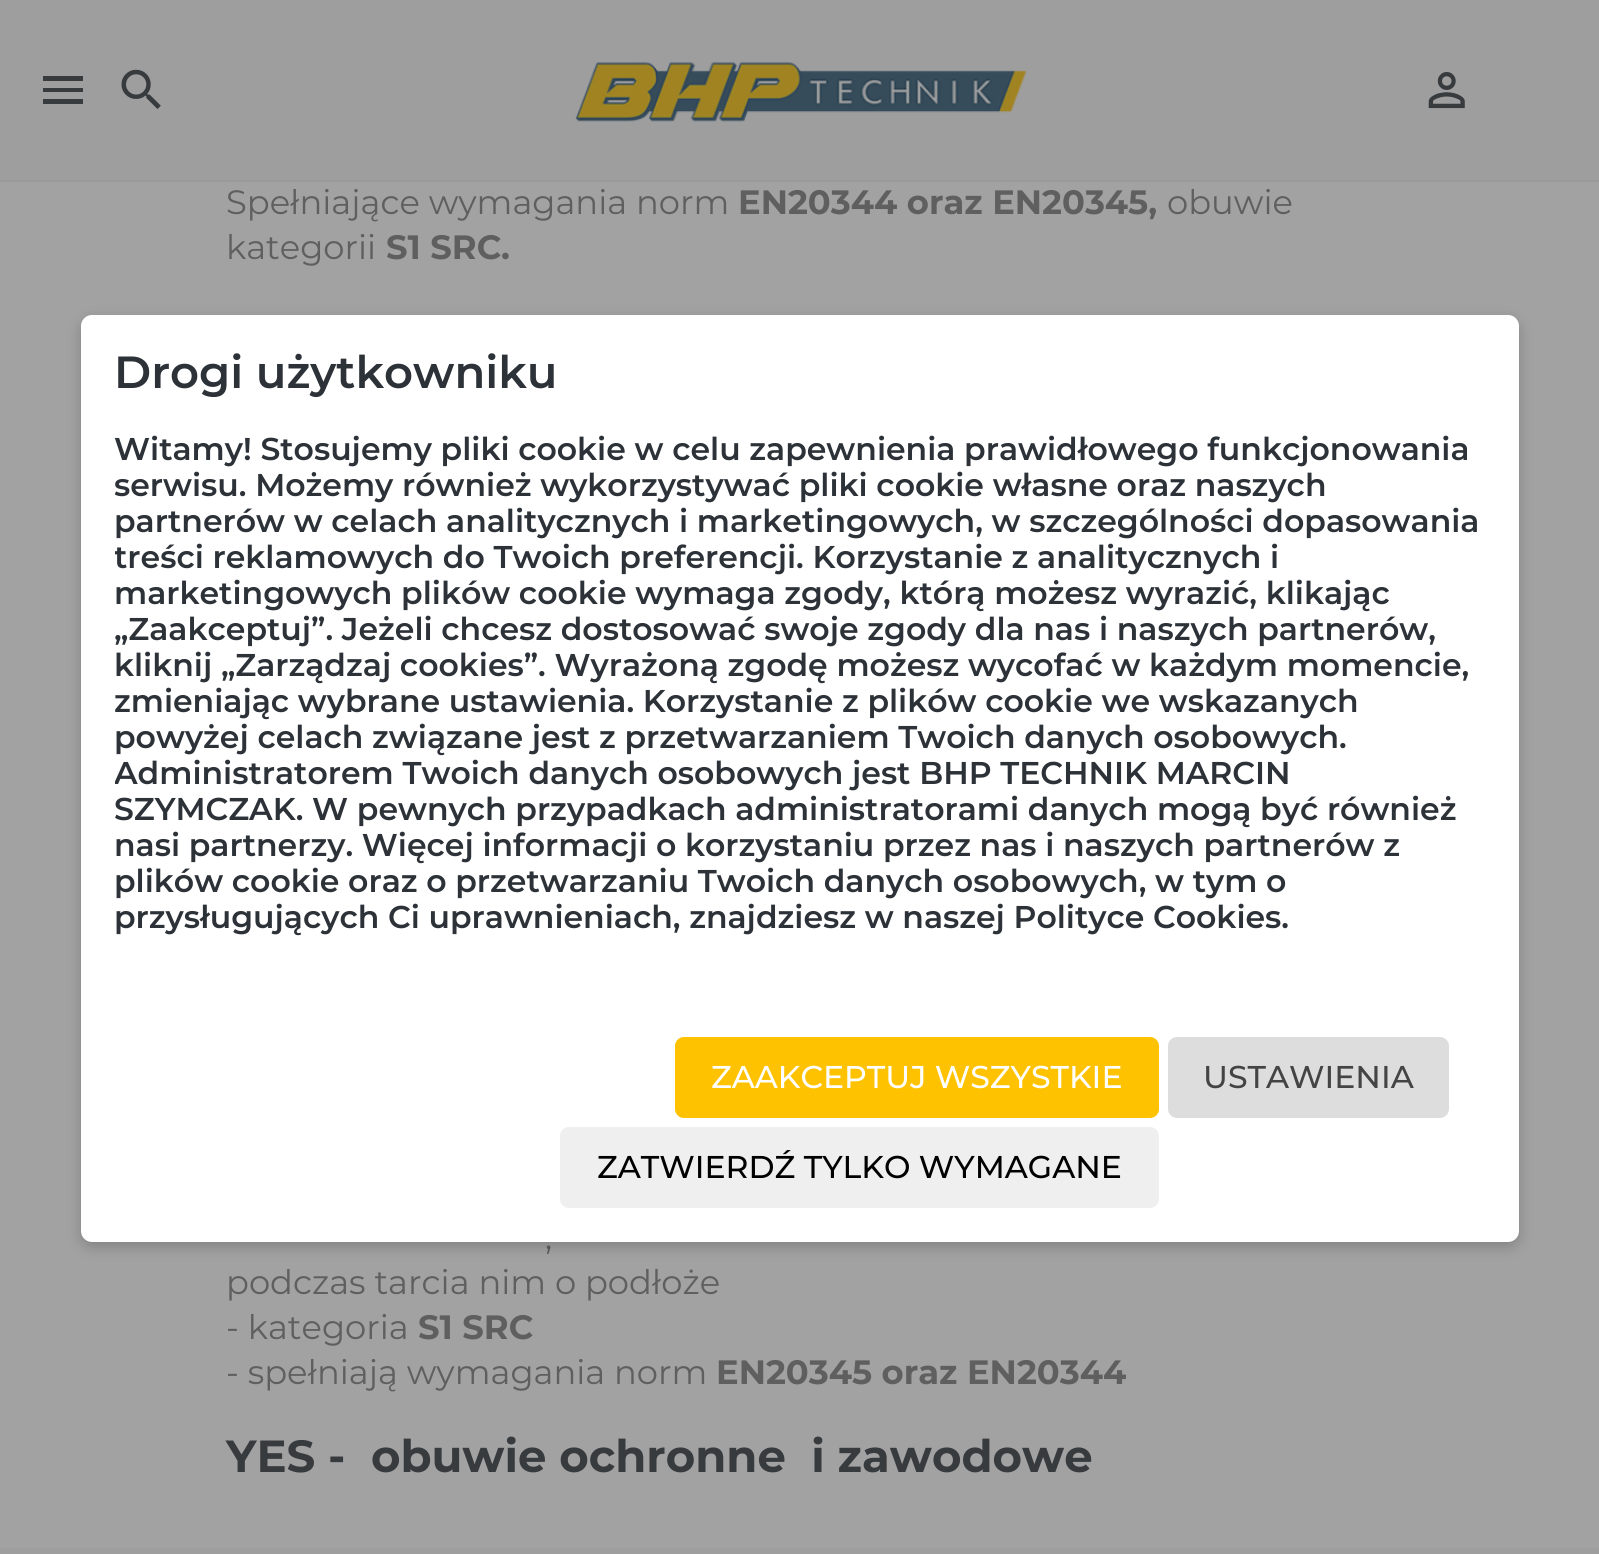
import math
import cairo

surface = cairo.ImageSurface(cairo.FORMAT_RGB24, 1599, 1554)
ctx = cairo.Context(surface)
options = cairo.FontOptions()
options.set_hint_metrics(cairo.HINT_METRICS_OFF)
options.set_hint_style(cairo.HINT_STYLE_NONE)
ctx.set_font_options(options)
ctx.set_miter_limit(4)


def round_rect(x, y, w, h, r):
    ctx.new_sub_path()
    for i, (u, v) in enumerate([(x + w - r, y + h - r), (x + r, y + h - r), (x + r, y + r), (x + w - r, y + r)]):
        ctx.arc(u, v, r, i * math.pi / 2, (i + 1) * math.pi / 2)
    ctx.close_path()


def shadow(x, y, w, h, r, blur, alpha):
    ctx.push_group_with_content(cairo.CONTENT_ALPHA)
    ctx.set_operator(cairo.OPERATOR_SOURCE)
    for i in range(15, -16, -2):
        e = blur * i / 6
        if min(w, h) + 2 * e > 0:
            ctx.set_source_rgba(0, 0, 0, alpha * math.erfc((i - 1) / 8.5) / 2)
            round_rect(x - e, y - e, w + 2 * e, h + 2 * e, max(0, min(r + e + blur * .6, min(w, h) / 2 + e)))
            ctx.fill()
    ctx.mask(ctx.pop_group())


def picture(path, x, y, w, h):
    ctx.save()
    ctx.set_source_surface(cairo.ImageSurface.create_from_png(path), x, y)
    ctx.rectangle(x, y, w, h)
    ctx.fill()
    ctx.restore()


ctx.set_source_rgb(0.635, 0.635, 0.635)
ctx.paint()
ctx.set_source_rgb(0.608, 0.608, 0.608)
ctx.rectangle(0, 180, 1599, 2)
ctx.fill()
ctx.set_source_rgb(0.62, 0.62, 0.62)
ctx.rectangle(0, 0, 1599, 180)
ctx.fill()
ctx.set_source_rgb(0.22, 0.231, 0.243)
ctx.new_path()
ctx.move_to(43, 76)
ctx.line_to(83, 76)
ctx.line_to(83, 81)
ctx.line_to(43, 81)
ctx.close_path()
ctx.move_to(43, 92)
ctx.line_to(43, 88)
ctx.line_to(83, 88)
ctx.line_to(83, 92)
ctx.close_path()
ctx.move_to(43, 104)
ctx.line_to(43, 99)
ctx.line_to(83, 99)
ctx.line_to(83, 104)
ctx.close_path()
ctx.fill()
picture("img1.png", 121, 69, 40, 40)
picture("img2.png", 575, 62, 451, 60)
picture("img3.png", 1428, 72, 37, 37)
ctx.select_font_face("Montserrat")
ctx.set_font_size(33.75)
ctx.set_source_rgb(0.373, 0.373, 0.373)
ctx.move_to(226, 214)
ctx.show_text("Spełniające wymagania norm")
ctx.select_font_face("Montserrat", cairo.FONT_SLANT_NORMAL, cairo.FONT_WEIGHT_BOLD)
ctx.move_to(738, 214)
ctx.show_text("EN20344 oraz EN20345,")
ctx.select_font_face("Montserrat")
ctx.move_to(1167, 214)
ctx.show_text("obuwie")
ctx.move_to(226, 259)
ctx.show_text("kategorii")
ctx.select_font_face("Montserrat", cairo.FONT_SLANT_NORMAL, cairo.FONT_WEIGHT_BOLD)
ctx.move_to(386, 259)
ctx.show_text("S1 SRC.")
ctx.select_font_face("Montserrat")
ctx.move_to(545, 1249)
ctx.show_text(",")
ctx.move_to(226, 1294)
ctx.show_text("podczas tarcia nim o podłoże")
ctx.move_to(226, 1339)
ctx.show_text("- kategoria")
ctx.select_font_face("Montserrat", cairo.FONT_SLANT_NORMAL, cairo.FONT_WEIGHT_BOLD)
ctx.move_to(418, 1339)
ctx.show_text("S1 SRC")
ctx.select_font_face("Montserrat")
ctx.move_to(226, 1384)
ctx.show_text("- spełniają wymagania norm")
ctx.select_font_face("Montserrat", cairo.FONT_SLANT_NORMAL, cairo.FONT_WEIGHT_BOLD)
ctx.move_to(716, 1384)
ctx.show_text("EN20345 oraz EN20344")
ctx.set_font_size(45)
ctx.set_source_rgb(0.22, 0.231, 0.243)
ctx.move_to(226, 1472)
ctx.show_text("YES -  obuwie ochronne  i zawodowe")
ctx.set_source_rgb(0.62, 0.62, 0.62)
ctx.rectangle(0, 1548, 1599, 6)
ctx.fill()
ctx.set_source_rgb(0, 0, 0)
shadow(81, 320, 1438, 927, 11, 7, 0.2)
ctx.set_source_rgb(1, 1, 1)
round_rect(81, 315, 1438, 927, 11)
ctx.fill()
ctx.select_font_face("Montserrat SemiBold")
ctx.set_source_rgb(0.173, 0.196, 0.22)
ctx.move_to(114, 388)
ctx.show_text("Drogi użytkowniku")
ctx.set_font_size(31.5)
ctx.move_to(114, 460)
ctx.show_text("Witamy! Stosujemy pliki cookie w celu zapewnienia prawidłowego funkcjonowania")
ctx.save()
ctx.rectangle(115, 349, 1370, 621)
ctx.clip()
ctx.move_to(114, 496)
ctx.show_text("serwisu. Możemy również wykorzystywać pliki cookie własne oraz naszych")
ctx.restore()
ctx.move_to(114, 532)
ctx.show_text("partnerów w celach analitycznych i marketingowych, w szczególności dopasowania")
ctx.save()
ctx.rectangle(115, 349, 1370, 621)
ctx.clip()
ctx.move_to(114, 568)
ctx.show_text("treści reklamowych do Twoich preferencji. Korzystanie z analitycznych i")
ctx.restore()
ctx.move_to(114, 604)
ctx.show_text("marketingowych plików cookie wymaga zgody, którą możesz wyrazić, klikając")
ctx.move_to(114, 640)
ctx.show_text("„Zaakceptuj”. Jeżeli chcesz dostosować swoje zgody dla nas i naszych partnerów,")
ctx.move_to(114, 676)
ctx.show_text("kliknij „Zarządzaj cookies”. Wyrażoną zgodę możesz wycofać w każdym momencie,")
ctx.move_to(114, 712)
ctx.show_text("zmieniając wybrane ustawienia. Korzystanie z plików cookie we wskazanych")
ctx.move_to(114, 748)
ctx.show_text("powyżej celach związane jest z przetwarzaniem Twoich danych osobowych.")
ctx.save()
ctx.rectangle(115, 349, 1370, 621)
ctx.clip()
ctx.move_to(114, 784)
ctx.show_text("Administratorem Twoich danych osobowych jest BHP TECHNIK MARCIN")
ctx.restore()
ctx.move_to(114, 820)
ctx.show_text("SZYMCZAK. W pewnych przypadkach administratorami danych mogą być również")
ctx.move_to(114, 856)
ctx.show_text("nasi partnerzy. Więcej informacji o korzystaniu przez nas i naszych partnerów z")
ctx.move_to(114, 892)
ctx.show_text("plików cookie oraz o przetwarzaniu Twoich danych osobowych, w tym o")
ctx.move_to(114, 928)
ctx.show_text("przysługujących Ci uprawnieniach, znajdziesz w naszej Polityce Cookies.")
ctx.set_source_rgb(0.996, 0.761, 0)
round_rect(675, 1037, 484, 81, 9)
ctx.fill()
ctx.select_font_face("Montserrat Medium")
ctx.set_source_rgb(1, 1, 1)
ctx.move_to(711, 1088)
ctx.show_text("ZAAKCEPTUJ WSZYSTKIE")
ctx.set_source_rgb(0.867, 0.867, 0.867)
round_rect(1168, 1037, 281, 81, 9)
ctx.fill()
ctx.set_source_rgb(0.267, 0.267, 0.267)
ctx.move_to(1203, 1088)
ctx.show_text("USTAWIENIA")
ctx.set_source_rgb(0.937, 0.937, 0.937)
round_rect(560, 1127, 599, 81, 9)
ctx.fill()
ctx.set_source_rgb(0, 0, 0)
ctx.move_to(597, 1178)
ctx.show_text("ZATWIERDŹ TYLKO WYMAGANE")
surface.write_to_png("page.png")
